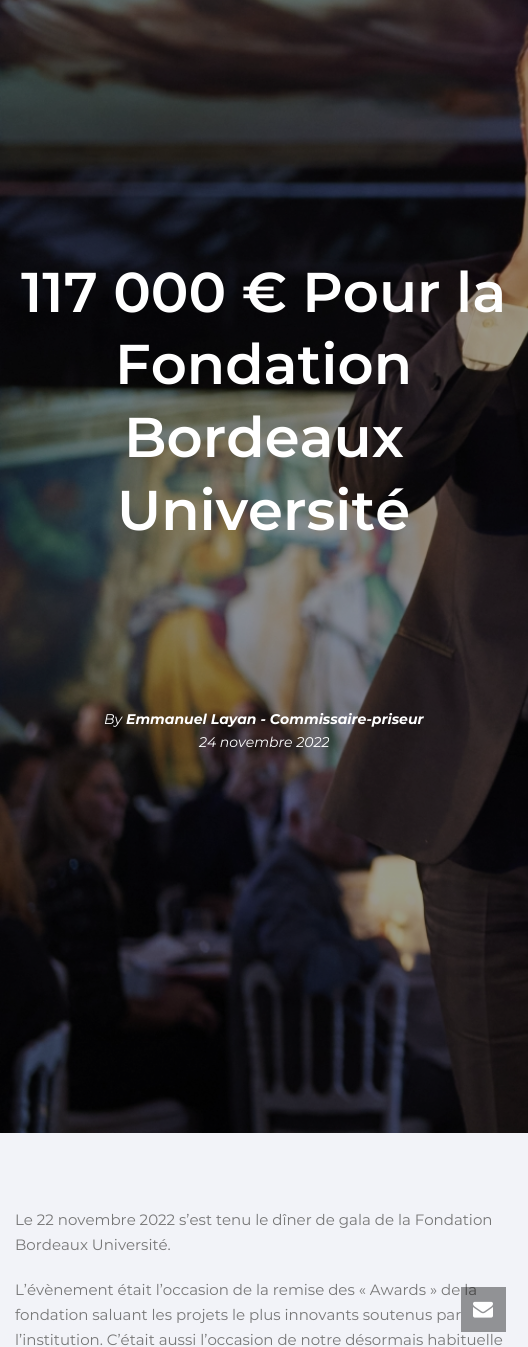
import math
import cairo

surface = cairo.ImageSurface(cairo.FORMAT_RGB24, 528, 1347)
ctx = cairo.Context(surface)
options = cairo.FontOptions()
options.set_hint_metrics(cairo.HINT_METRICS_OFF)
options.set_hint_style(cairo.HINT_STYLE_NONE)
ctx.set_font_options(options)
ctx.set_miter_limit(4)


def picture(path, x, y, w, h):
    ctx.save()
    ctx.set_source_surface(cairo.ImageSurface.create_from_png(path), x, y)
    ctx.rectangle(x, y, w, h)
    ctx.fill()
    ctx.restore()


ctx.set_source_rgb(1, 1, 1)
ctx.paint()
picture("img1.png", 0, 0, 528, 1133)
ctx.select_font_face("Montserrat SemiBold")
ctx.set_font_size(56)
ctx.set_source_rgb(1, 1, 1)
ctx.move_to(21, 312)
ctx.show_text("117 000 € Pour la")
ctx.move_to(115, 384)
ctx.show_text("Fondation")
ctx.move_to(124, 457)
ctx.show_text("Bordeaux")
ctx.move_to(117, 530)
ctx.show_text("Université")
ctx.select_font_face("Montserrat", cairo.FONT_SLANT_ITALIC)
ctx.set_font_size(14)
ctx.move_to(104, 724)
ctx.show_text("By")
ctx.select_font_face("Montserrat", cairo.FONT_SLANT_ITALIC, cairo.FONT_WEIGHT_BOLD)
ctx.move_to(126, 724)
ctx.show_text("Emmanuel Layan - Commissaire-priseur")
ctx.select_font_face("Montserrat", cairo.FONT_SLANT_ITALIC)
ctx.move_to(199, 747)
ctx.show_text("24 novembre 2022")
ctx.set_source_rgb(0.949, 0.953, 0.969)
ctx.rectangle(0, 1133, 528, 214)
ctx.fill()
ctx.select_font_face("Montserrat")
ctx.set_font_size(15)
ctx.set_source_rgb(0.467, 0.467, 0.467)
ctx.move_to(15, 1225)
ctx.show_text("Le 22 novembre 2022 s’est tenu le dîner de gala de la Fondation")
ctx.move_to(15, 1250)
ctx.show_text("Bordeaux Université.")
ctx.move_to(15, 1295)
ctx.show_text("L’évènement était l’occasion de la remise des « Awards » de la")
ctx.move_to(15, 1320)
ctx.show_text("fondation saluant les projets le plus innovants soutenus par")
ctx.move_to(15, 1345)
ctx.show_text("l’institution. C’était aussi l’occasion de notre désormais habituelle")
ctx.set_source_rgba(0, 0, 0, 0.4)
ctx.rectangle(461, 1287, 45, 45)
ctx.fill()
picture("img2.png", 473, 1301, 20, 17)
surface.write_to_png("page.png")
